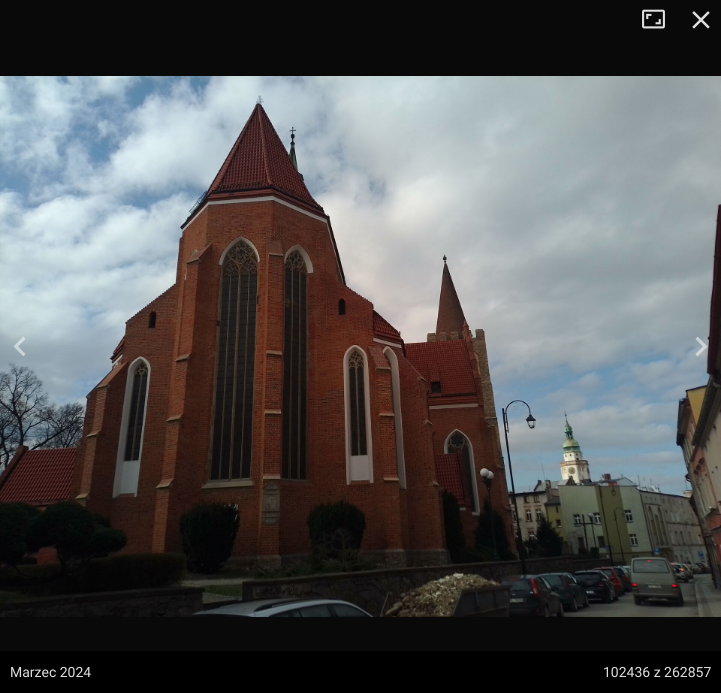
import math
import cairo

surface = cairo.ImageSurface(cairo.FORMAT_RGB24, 721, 693)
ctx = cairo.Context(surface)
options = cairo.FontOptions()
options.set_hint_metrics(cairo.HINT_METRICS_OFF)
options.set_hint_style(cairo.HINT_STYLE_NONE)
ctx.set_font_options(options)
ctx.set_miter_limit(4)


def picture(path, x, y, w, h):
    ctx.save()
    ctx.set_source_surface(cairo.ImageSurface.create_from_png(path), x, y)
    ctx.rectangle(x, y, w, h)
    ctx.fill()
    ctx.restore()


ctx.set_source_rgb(0.039, 0.039, 0.039)
ctx.paint()
picture("img1.png", 642, 9, 23, 20)
picture("img2.png", 692, 11, 18, 18)
picture("img3.png", 0, 76, 721, 541)
ctx.set_source_rgba(1, 1, 1, 0.5)
ctx.new_path()
ctx.move_to(25.5, 339)
ctx.line_to(23.5, 336.5)
ctx.line_to(13.5, 346.5)
ctx.line_to(23.5, 356.5)
ctx.line_to(25.5, 354)
ctx.line_to(18, 346.5)
ctx.close_path()
ctx.fill()
ctx.new_path()
ctx.move_to(697.5, 336.5)
ctx.line_to(695.5, 339)
ctx.line_to(703, 346.5)
ctx.line_to(695.5, 354)
ctx.line_to(697.5, 356.5)
ctx.line_to(707.5, 346.5)
ctx.close_path()
ctx.fill()
ctx.set_source_rgb(0, 0, 0)
ctx.rectangle(0, 651, 721, 42)
ctx.fill()
ctx.select_font_face("Roboto")
ctx.set_font_size(14)
ctx.set_source_rgb(0.871, 0.871, 0.871)
ctx.move_to(10, 677)
ctx.show_text("Marzec 2024")
ctx.move_to(603, 677)
ctx.show_text("102436 z 262857")
surface.write_to_png("page.png")
